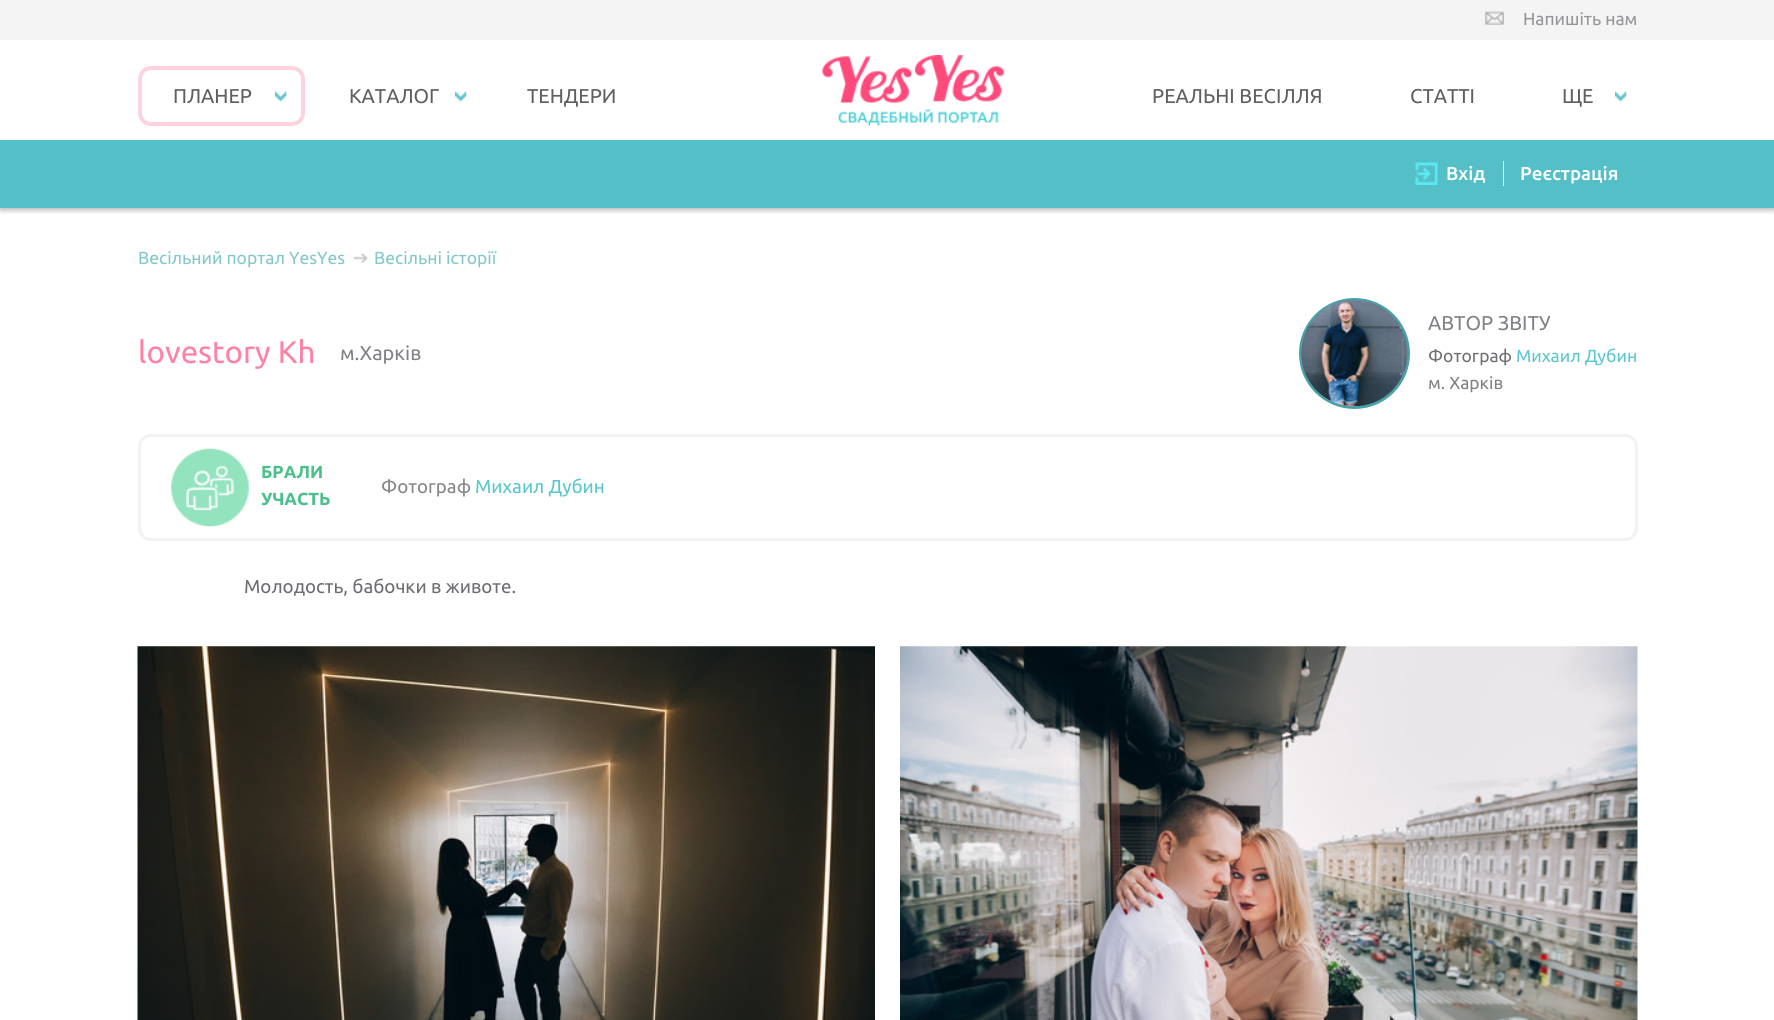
import math
import cairo

surface = cairo.ImageSurface(cairo.FORMAT_RGB24, 1774, 1020)
ctx = cairo.Context(surface)
options = cairo.FontOptions()
options.set_hint_metrics(cairo.HINT_METRICS_OFF)
options.set_hint_style(cairo.HINT_STYLE_NONE)
ctx.set_font_options(options)
ctx.set_miter_limit(4)


def round_rect(x, y, w, h, r):
    ctx.new_sub_path()
    for i, (u, v) in enumerate([(x + w - r, y + h - r), (x + r, y + h - r), (x + r, y + r), (x + w - r, y + r)]):
        ctx.arc(u, v, r, i * math.pi / 2, (i + 1) * math.pi / 2)
    ctx.close_path()


def shadow(x, y, w, h, r, blur, alpha):
    ctx.push_group_with_content(cairo.CONTENT_ALPHA)
    ctx.set_operator(cairo.OPERATOR_SOURCE)
    for i in range(15, -16, -2):
        e = blur * i / 6
        if min(w, h) + 2 * e > 0:
            ctx.set_source_rgba(0, 0, 0, alpha * math.erfc((i - 1) / 8.5) / 2)
            round_rect(x - e, y - e, w + 2 * e, h + 2 * e, max(0, min(r + e + blur * .6, min(w, h) / 2 + e)))
            ctx.fill()
    ctx.mask(ctx.pop_group())


def picture(path, x, y, w, h):
    ctx.save()
    ctx.set_source_surface(cairo.ImageSurface.create_from_png(path), x, y)
    ctx.rectangle(x, y, w, h)
    ctx.fill()
    ctx.restore()


ctx.set_source_rgb(1, 1, 1)
ctx.paint()
ctx.save()
ctx.rectangle(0, 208, 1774, 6)
ctx.clip()
ctx.set_source_rgb(0, 0, 0)
shadow(0, 3, 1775, 207, 0, 3, 0.3)
ctx.restore()
ctx.set_source_rgb(0.957, 0.957, 0.957)
ctx.rectangle(0, 0, 1774, 40)
ctx.fill()
picture("img1.png", 1485, 11, 19, 14)
ctx.select_font_face("ubuntu")
ctx.set_font_size(17.5)
ctx.set_source_rgb(0.576, 0.584, 0.596)
ctx.move_to(1523, 25)
ctx.show_text("Напишіть нам")
picture("img2.png", 275, 91, 12, 11)
round_rect(140, 68, 163, 56, 11)
ctx.set_source_rgb(1, 0.827, 0.867)
ctx.set_line_width(4)
ctx.stroke()
ctx.set_font_size(20)
ctx.set_source_rgb(0.373, 0.373, 0.373)
ctx.move_to(173, 103)
ctx.show_text("ПЛАНЕР")
picture("img2.png", 455, 91, 12, 11)
ctx.move_to(349, 103)
ctx.show_text("КАТАЛОГ")
ctx.move_to(527, 103)
ctx.show_text("ТЕНДЕРИ")
picture("img3.png", 822, 55, 182, 72)
ctx.move_to(1152, 103)
ctx.show_text("РЕАЛЬНІ ВЕСІЛЛЯ")
ctx.move_to(1410, 103)
ctx.show_text("СТАТТІ")
picture("img4.png", 1615, 91, 12, 11)
ctx.move_to(1562, 103)
ctx.show_text("ЩЕ")
ctx.set_source_rgb(0.333, 0.749, 0.784)
ctx.rectangle(0, 140, 1774, 68)
ctx.fill()
picture("img5.png", 1415, 162, 23, 23)
ctx.select_font_face("Ubuntu Medium")
ctx.set_font_size(18.75)
ctx.set_source_rgb(1, 1, 1)
ctx.move_to(1446, 180)
ctx.show_text("Вхід")
ctx.rectangle(1503, 161, 1, 25)
ctx.fill()
ctx.move_to(1520, 180)
ctx.show_text("Реєстрація")
ctx.select_font_face("ubuntu")
ctx.set_font_size(17.5)
ctx.set_source_rgb(0.51, 0.78, 0.796)
ctx.move_to(138, 264)
ctx.show_text("Весільний портал YesYes")
picture("img6.png", 353, 253, 15, 10)
ctx.move_to(374, 264)
ctx.show_text("Весільні історії")
ctx.set_font_size(31.25)
ctx.set_source_rgb(1, 0.51, 0.647)
ctx.move_to(138, 363)
ctx.show_text("lovestory Kh")
ctx.set_font_size(20)
ctx.set_source_rgb(0.502, 0.51, 0.522)
ctx.move_to(340, 360)
ctx.show_text("м.Харків")
ctx.new_path()
ctx.arc(1354.5, 353.5, 54, 0, 2 * math.pi)
ctx.set_source_rgb(0.282, 0.631, 0.663)
ctx.set_line_width(3)
ctx.stroke()
picture("img7.png", 1301, 300, 107, 107)
ctx.set_source_rgb(0.502, 0.51, 0.522)
ctx.move_to(1428, 330)
ctx.show_text("АВТОР ЗВІТУ")
ctx.set_font_size(17.5)
ctx.set_source_rgb(0.427, 0.431, 0.443)
ctx.move_to(1428, 362)
ctx.show_text("Фотограф")
ctx.set_source_rgb(0.353, 0.78, 0.808)
ctx.move_to(1516, 362)
ctx.show_text("Михаил Дубин")
ctx.set_source_rgb(0.502, 0.51, 0.522)
ctx.move_to(1428, 389)
ctx.show_text("м. Харків")
round_rect(139.5, 435.5, 1497, 104, 11.5)
ctx.set_source_rgb(0.949, 0.949, 0.949)
ctx.stroke()
picture("img8.png", 171, 448, 78, 79)
ctx.select_font_face("Ubuntu", cairo.FONT_SLANT_NORMAL, cairo.FONT_WEIGHT_BOLD)
ctx.set_source_rgb(0.294, 0.753, 0.545)
ctx.move_to(261, 478)
ctx.show_text("БРАЛИ")
ctx.move_to(261, 505)
ctx.show_text("УЧАСТЬ")
ctx.select_font_face("ubuntu")
ctx.set_font_size(18.75)
ctx.set_source_rgb(0.529, 0.529, 0.529)
ctx.move_to(381, 493)
ctx.show_text("Фотограф")
ctx.set_source_rgb(0.353, 0.78, 0.808)
ctx.move_to(475, 493)
ctx.show_text("Михаил Дубин")
ctx.set_source_rgb(0.427, 0.431, 0.443)
ctx.move_to(244, 593)
ctx.show_text("Молодость, бабочки в животе.")
picture("img9.png", 137, 646, 738, 374)
picture("img10.png", 900, 646, 738, 374)
surface.write_to_png("page.png")
